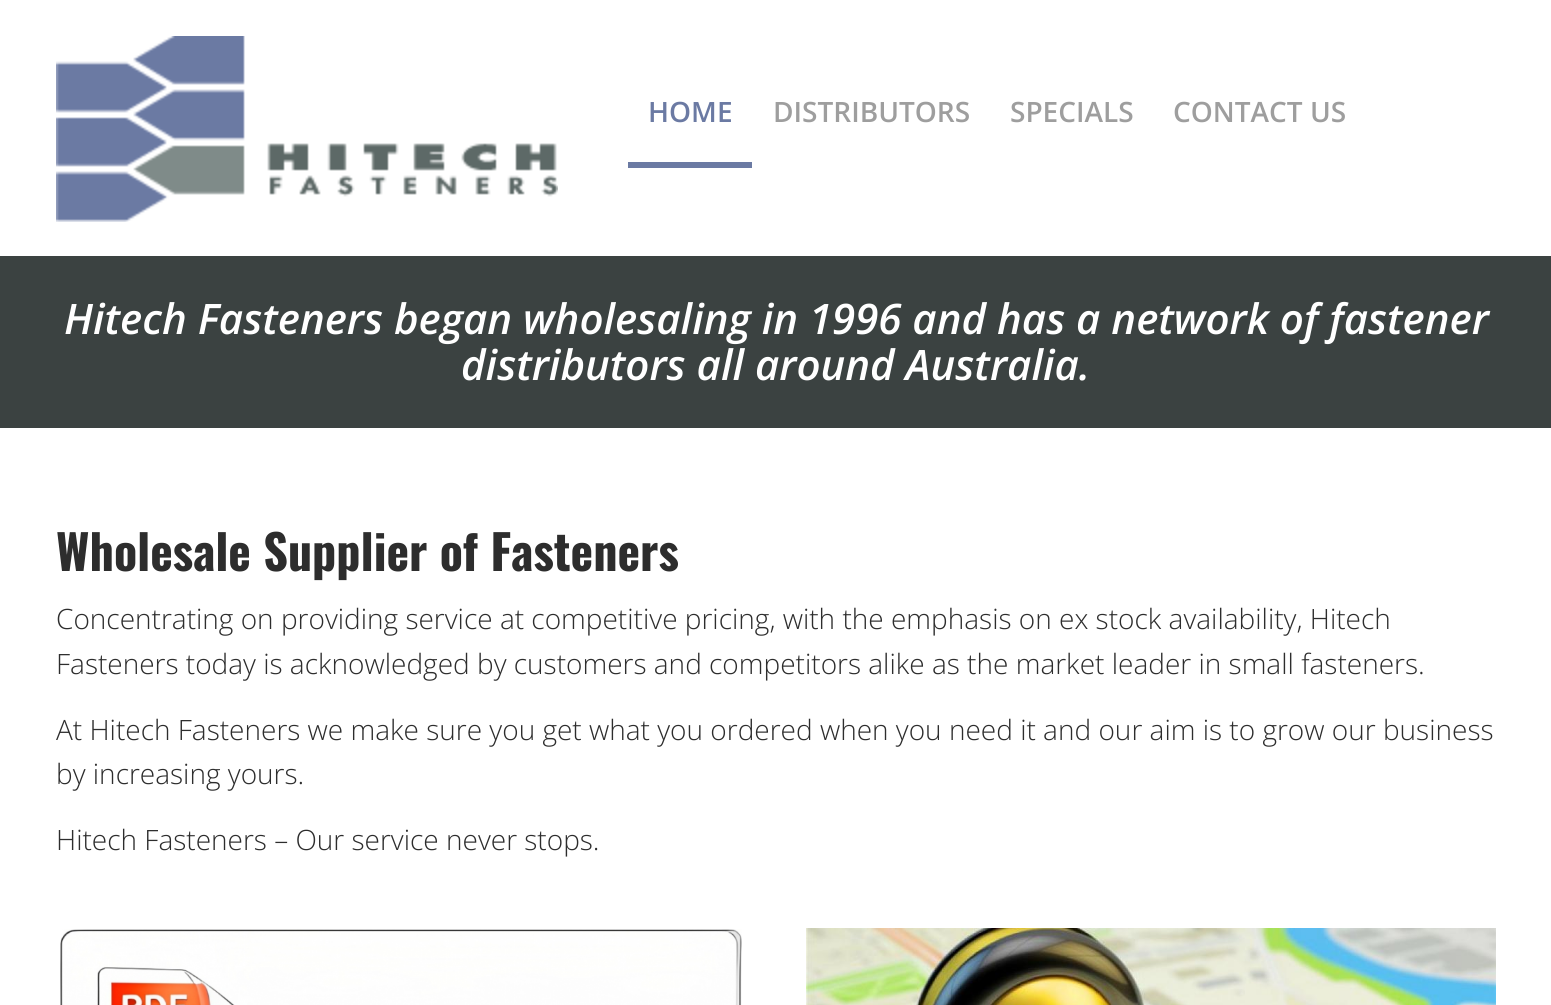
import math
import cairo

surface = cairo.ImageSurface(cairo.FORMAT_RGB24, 1551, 1005)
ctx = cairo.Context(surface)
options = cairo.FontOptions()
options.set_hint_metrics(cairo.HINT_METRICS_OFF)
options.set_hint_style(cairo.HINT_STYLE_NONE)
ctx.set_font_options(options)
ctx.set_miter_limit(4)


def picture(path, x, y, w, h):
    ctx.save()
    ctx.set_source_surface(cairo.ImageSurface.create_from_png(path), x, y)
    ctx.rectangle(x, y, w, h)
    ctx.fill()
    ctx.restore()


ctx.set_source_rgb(1, 1, 1)
ctx.paint()
picture("img1.png", 56, 36, 502, 186)
ctx.set_source_rgb(0.42, 0.478, 0.639)
ctx.rectangle(628, 162, 124, 6)
ctx.fill()
ctx.select_font_face("Open Sans SemiBold")
ctx.set_font_size(28)
ctx.move_to(648, 122)
ctx.show_text("HOME")
ctx.set_source_rgb(0.62, 0.62, 0.62)
ctx.move_to(773, 122)
ctx.show_text("DISTRIBUTORS")
ctx.move_to(1010, 122)
ctx.show_text("SPECIALS")
ctx.move_to(1173, 122)
ctx.show_text("CONTACT US")
ctx.set_source_rgb(0.231, 0.259, 0.255)
ctx.rectangle(0, 256, 1551, 172)
ctx.fill()
ctx.select_font_face("Open Sans SemiBold", cairo.FONT_SLANT_ITALIC)
ctx.set_font_size(42)
ctx.set_source_rgb(1, 1, 1)
ctx.move_to(64, 334)
ctx.show_text("Hitech Fasteners began wholesaling in 1996 and has a network of fastener")
ctx.move_to(461, 380)
ctx.show_text("distributors all around Australia.")
ctx.select_font_face("Oswald", cairo.FONT_SLANT_NORMAL, cairo.FONT_WEIGHT_BOLD)
ctx.set_font_size(48)
ctx.set_source_rgb(0.176, 0.176, 0.176)
ctx.move_to(56, 571)
ctx.show_text("Wholesale Supplier of Fasteners")
ctx.select_font_face("Open Sans Light")
ctx.set_font_size(28)
ctx.move_to(56, 629)
ctx.show_text("Concentrating on providing service at competitive pricing, with the emphasis on ex stock availability, Hitech")
ctx.move_to(56, 674)
ctx.show_text("Fasteners today is acknowledged by customers and competitors alike as the market leader in small fasteners.")
ctx.move_to(56, 740)
ctx.show_text("At Hitech Fasteners we make sure you get what you ordered when you need it and our aim is to grow our business")
ctx.move_to(56, 784)
ctx.show_text("by increasing yours.")
ctx.move_to(56, 850)
ctx.show_text("Hitech Fasteners – Our service never stops.")
picture("img2.png", 60, 929, 682, 76)
picture("img3.png", 806, 928, 690, 77)
surface.write_to_png("page.png")
